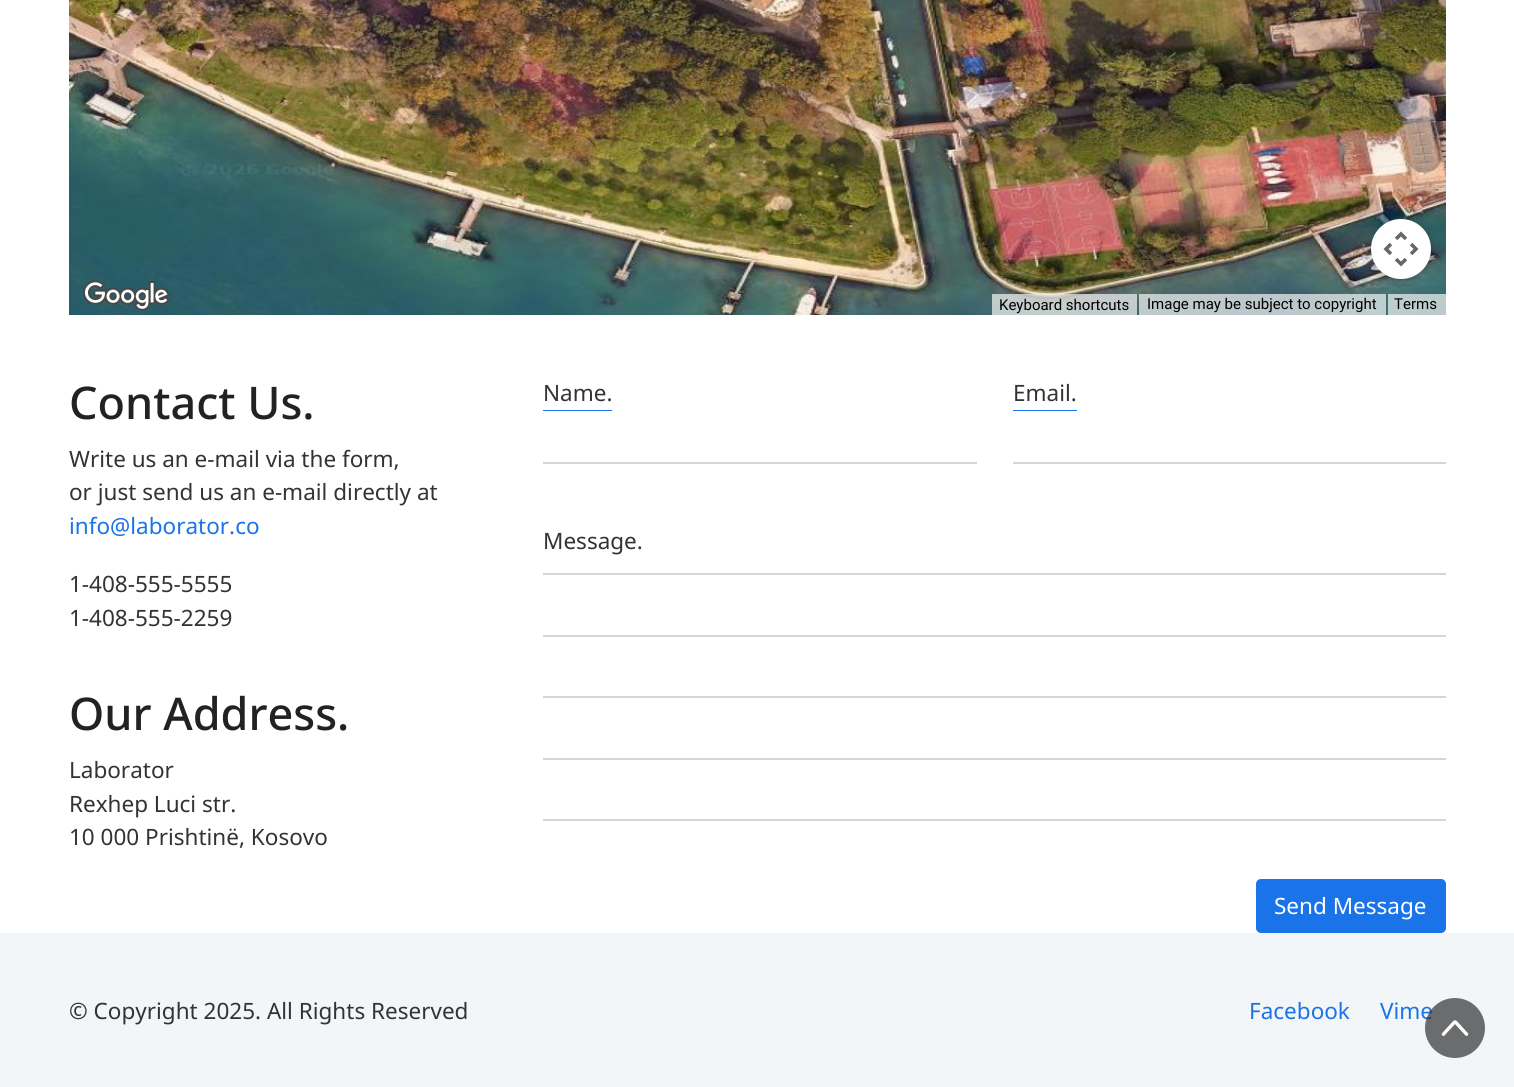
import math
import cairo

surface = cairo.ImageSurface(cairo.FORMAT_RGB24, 1514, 1087)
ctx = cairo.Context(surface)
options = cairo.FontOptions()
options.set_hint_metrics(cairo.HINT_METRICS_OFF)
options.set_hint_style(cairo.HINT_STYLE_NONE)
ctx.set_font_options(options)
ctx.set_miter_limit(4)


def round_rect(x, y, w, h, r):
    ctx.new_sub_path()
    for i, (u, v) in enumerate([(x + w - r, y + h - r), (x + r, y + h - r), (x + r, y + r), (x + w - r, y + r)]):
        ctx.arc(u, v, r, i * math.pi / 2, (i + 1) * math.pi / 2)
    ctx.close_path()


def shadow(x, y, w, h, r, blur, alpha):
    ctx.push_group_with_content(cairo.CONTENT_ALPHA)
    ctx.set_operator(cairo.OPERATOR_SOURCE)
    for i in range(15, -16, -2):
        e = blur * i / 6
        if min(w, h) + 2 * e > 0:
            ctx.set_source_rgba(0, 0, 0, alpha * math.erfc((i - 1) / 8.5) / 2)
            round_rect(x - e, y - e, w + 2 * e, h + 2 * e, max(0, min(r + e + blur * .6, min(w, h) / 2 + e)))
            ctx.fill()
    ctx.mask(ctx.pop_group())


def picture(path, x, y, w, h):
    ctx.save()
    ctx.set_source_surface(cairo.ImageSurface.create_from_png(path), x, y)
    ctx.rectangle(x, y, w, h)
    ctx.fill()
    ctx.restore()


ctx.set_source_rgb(1, 1, 1)
ctx.paint()
picture("img1.png", 69, 0, 99, 77)
picture("img2.png", 168, 0, 384, 77)
picture("img3.png", 552, 0, 384, 77)
picture("img4.png", 936, 0, 384, 77)
picture("img5.png", 1320, 0, 126, 77)
picture("img6.png", 69, 77, 99, 238)
picture("img7.png", 168, 77, 384, 238)
picture("img8.png", 552, 77, 384, 238)
picture("img9.png", 936, 77, 384, 238)
picture("img10.png", 1320, 77, 126, 238)
ctx.set_source_rgb(0, 0, 0)
shadow(1373, 222, 57, 57, 28.5, 3, 0.3)
ctx.set_source_rgb(1, 1, 1)
ctx.arc(1401, 249, 30, 0, 2 * math.pi)
ctx.fill()
picture("img11.png", 1383, 231, 36, 36)
picture("img12.png", 83, 280, 87, 31)
ctx.set_source_rgba(0.961, 0.961, 0.961, 0.7)
ctx.rectangle(992, 294, 145, 21)
ctx.fill()
ctx.select_font_face("Roboto")
ctx.set_font_size(15)
ctx.set_source_rgb(0, 0, 0)
ctx.move_to(999, 310)
ctx.show_text("Keyboard shortcuts")
ctx.set_source_rgba(0.961, 0.961, 0.961, 0.7)
ctx.rectangle(1139, 294, 247, 21)
ctx.fill()
ctx.set_source_rgb(0, 0, 0)
ctx.move_to(1147, 309)
ctx.show_text("Image may be subject to copyright")
ctx.set_source_rgba(0.961, 0.961, 0.961, 0.7)
ctx.rectangle(1388, 294, 58, 21)
ctx.fill()
ctx.set_source_rgb(0, 0, 0)
ctx.move_to(1394, 309)
ctx.show_text("Terms")
ctx.select_font_face("Noto Sans Medium")
ctx.set_font_size(45)
ctx.set_source_rgb(0.133, 0.133, 0.133)
ctx.move_to(69, 419)
ctx.show_text("Contact Us.")
ctx.select_font_face("Noto Sans")
ctx.set_font_size(22.5)
ctx.set_source_rgb(0.2, 0.2, 0.2)
ctx.move_to(69, 467)
ctx.show_text("Write us an e-mail via the form,")
ctx.move_to(69, 500)
ctx.show_text("or just send us an e-mail directly at")
ctx.set_source_rgb(0.102, 0.451, 0.91)
ctx.move_to(69, 534)
ctx.show_text("info@laborator.co")
ctx.set_source_rgb(0.2, 0.2, 0.2)
ctx.move_to(69, 592)
ctx.show_text("1-408-555-5555")
ctx.move_to(69, 626)
ctx.show_text("1-408-555-2259")
ctx.select_font_face("Noto Sans Medium")
ctx.set_font_size(45)
ctx.set_source_rgb(0.133, 0.133, 0.133)
ctx.move_to(69, 730)
ctx.show_text("Our Address.")
ctx.select_font_face("Noto Sans")
ctx.set_font_size(22.5)
ctx.set_source_rgb(0.2, 0.2, 0.2)
ctx.move_to(69, 778)
ctx.show_text("Laborator")
ctx.move_to(69, 812)
ctx.show_text("Rexhep Luci str.")
ctx.move_to(69, 845)
ctx.show_text("10 000 Prishtinë, Kosovo")
ctx.set_source_rgb(0.102, 0.451, 0.91)
ctx.rectangle(543, 410, 69, 1)
ctx.fill()
ctx.set_source_rgb(0.2, 0.2, 0.2)
ctx.move_to(543, 401)
ctx.show_text("Name.")
ctx.set_source_rgb(0.839, 0.839, 0.839)
ctx.rectangle(543, 462, 434, 2)
ctx.fill()
ctx.set_source_rgb(0.102, 0.451, 0.91)
ctx.rectangle(1013, 410, 64, 1)
ctx.fill()
ctx.set_source_rgb(0.2, 0.2, 0.2)
ctx.move_to(1013, 401)
ctx.show_text("Email.")
ctx.set_source_rgb(0.839, 0.839, 0.839)
ctx.rectangle(1013, 462, 433, 2)
ctx.fill()
ctx.set_source_rgb(0.2, 0.2, 0.2)
ctx.move_to(543, 549)
ctx.show_text("Message.")
ctx.set_source_rgb(0.839, 0.839, 0.839)
ctx.rectangle(543, 573, 903, 2)
ctx.fill()
ctx.rectangle(543, 635, 903, 2)
ctx.fill()
ctx.rectangle(543, 696, 903, 2)
ctx.fill()
ctx.rectangle(543, 758, 903, 2)
ctx.fill()
ctx.rectangle(543, 819, 903, 2)
ctx.fill()
ctx.set_source_rgb(0.102, 0.451, 0.91)
round_rect(1256, 879, 190, 54, 5)
ctx.fill()
ctx.set_source_rgb(1, 1, 1)
ctx.move_to(1274, 914)
ctx.show_text("Send Message")
ctx.set_source_rgb(0.953, 0.961, 0.969)
ctx.rectangle(0, 933, 1514, 154)
ctx.fill()
ctx.set_source_rgb(0.2, 0.2, 0.2)
ctx.move_to(69, 1019)
ctx.show_text("© Copyright 2025. All Rights Reserved")
ctx.set_source_rgb(0.102, 0.451, 0.91)
ctx.move_to(1249, 1019)
ctx.show_text("Facebook")
ctx.move_to(1380, 1019)
ctx.show_text("Vime")
ctx.set_source_rgba(0.2, 0.2, 0.2, 0.7)
ctx.new_path()
ctx.arc(1455, 1028, 30, 0, 2 * math.pi)
ctx.fill()
picture("img13.png", 1441, 1020, 28, 16)
surface.write_to_png("page.png")
